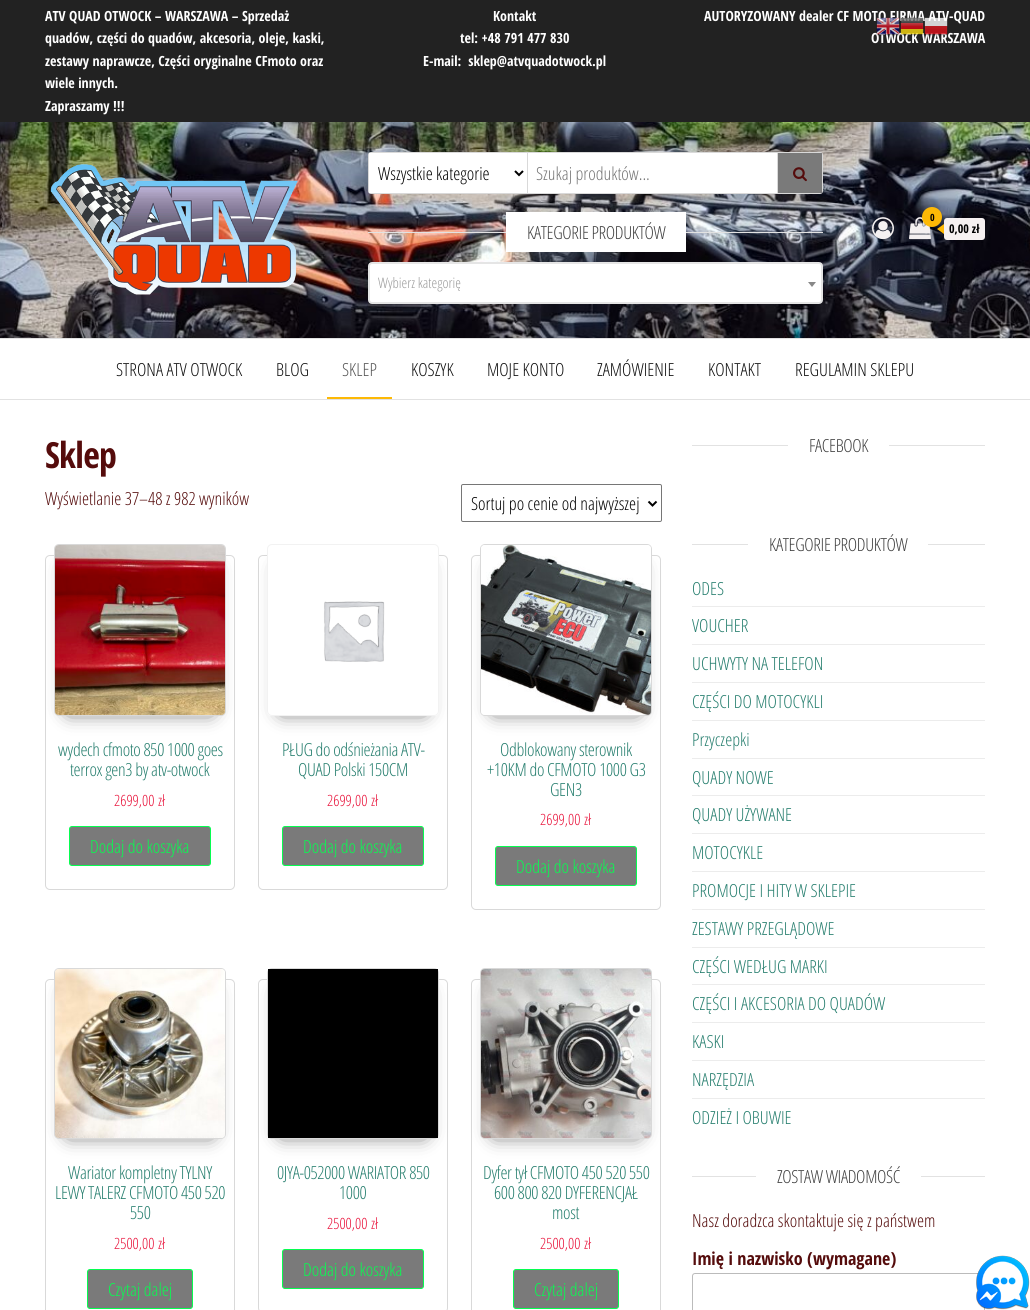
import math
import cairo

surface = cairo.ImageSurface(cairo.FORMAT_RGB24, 1030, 1310)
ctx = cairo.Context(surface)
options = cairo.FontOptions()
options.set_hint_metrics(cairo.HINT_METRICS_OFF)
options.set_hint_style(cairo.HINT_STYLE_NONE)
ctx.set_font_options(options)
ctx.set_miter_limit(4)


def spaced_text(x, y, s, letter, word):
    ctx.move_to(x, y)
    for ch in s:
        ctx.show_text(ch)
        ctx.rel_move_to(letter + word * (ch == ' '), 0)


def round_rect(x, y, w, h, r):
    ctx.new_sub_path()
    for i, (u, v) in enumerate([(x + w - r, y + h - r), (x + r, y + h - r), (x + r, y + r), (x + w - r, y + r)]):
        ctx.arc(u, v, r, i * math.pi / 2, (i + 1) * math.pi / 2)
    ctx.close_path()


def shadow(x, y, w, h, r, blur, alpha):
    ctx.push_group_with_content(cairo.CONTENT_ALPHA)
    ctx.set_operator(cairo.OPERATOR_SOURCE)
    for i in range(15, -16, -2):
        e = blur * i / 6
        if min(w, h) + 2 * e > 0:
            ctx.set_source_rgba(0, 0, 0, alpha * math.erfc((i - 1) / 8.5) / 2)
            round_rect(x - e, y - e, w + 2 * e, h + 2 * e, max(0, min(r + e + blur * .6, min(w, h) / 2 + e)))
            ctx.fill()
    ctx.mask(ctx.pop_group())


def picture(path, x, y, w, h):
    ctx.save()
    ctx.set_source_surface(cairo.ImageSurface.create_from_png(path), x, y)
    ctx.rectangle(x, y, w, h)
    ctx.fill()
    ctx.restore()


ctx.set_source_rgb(1, 1, 1)
ctx.paint()
ctx.set_source_rgb(0.133, 0.133, 0.133)
ctx.rectangle(0, 0, 1030, 122)
ctx.fill()
ctx.select_font_face("Open Sans Condensed", cairo.FONT_SLANT_NORMAL, cairo.FONT_WEIGHT_BOLD)
ctx.set_font_size(14)
ctx.set_source_rgb(1, 1, 1)
ctx.move_to(45, 21)
ctx.show_text("ATV QUAD OTWOCK – WARSZAWA – Sprzedaż")
ctx.move_to(45, 43)
ctx.show_text("quadów, części do quadów, akcesoria, oleje, kaski,")
ctx.move_to(45, 66)
ctx.show_text("zestawy naprawcze, Części oryginalne CFmoto oraz")
ctx.move_to(45, 88)
ctx.show_text("wiele innych.")
ctx.move_to(45, 111)
ctx.show_text("Zapraszamy !!!")
ctx.move_to(493, 21)
ctx.show_text("Kontakt")
ctx.move_to(460, 43)
ctx.show_text("tel: +48 791 477 830")
ctx.move_to(423, 66)
ctx.show_text("E-mail:  sklep@atvquadotwock.pl")
ctx.move_to(704, 21)
ctx.show_text("AUTORYZOWANY dealer CF MOTO FIRMA ATV-QUAD")
ctx.move_to(871, 43)
ctx.show_text("OTWOCK WARSZAWA")
picture("img1.png", 0, 122, 1030, 216)
picture("img2.png", 50, 164, 248, 131)
round_rect(368.5, 152.5, 454, 41, 2.5)
ctx.set_source_rgb(0.851, 0.851, 0.851)
ctx.set_line_width(1)
ctx.stroke()
ctx.set_source_rgb(1, 1, 1)
ctx.rectangle(369, 153, 158, 40)
ctx.fill()
ctx.set_source_rgb(0.851, 0.851, 0.851)
ctx.rectangle(527, 153, 1, 40)
ctx.fill()
ctx.new_path()
ctx.move_to(515, 171)
ctx.line_to(519, 175)
ctx.line_to(523, 171)
ctx.set_source_rgb(0, 0, 0)
ctx.set_line_width(2)
ctx.stroke()
ctx.select_font_face("Open Sans Condensed Light")
ctx.set_font_size(18)
ctx.move_to(378, 180)
ctx.show_text("Wszystkie kategorie")
ctx.set_source_rgb(1, 1, 1)
ctx.rectangle(528, 153, 249, 40)
ctx.fill()
ctx.set_source_rgb(0.459, 0.459, 0.459)
ctx.move_to(536, 180)
ctx.show_text("Szukaj produktów...")
ctx.set_source_rgb(0.478, 0.478, 0.478)
ctx.rectangle(778, 153, 44, 40)
ctx.fill()
ctx.set_source_rgb(0.851, 0.851, 0.851)
ctx.rectangle(777, 153, 1, 40)
ctx.fill()
picture("img3.png", 793, 167, 14, 15)
ctx.set_source_rgb(0.886, 0.886, 0.886)
ctx.rectangle(368, 232, 455, 1)
ctx.fill()
ctx.set_source_rgb(1, 1, 1)
ctx.rectangle(506, 212, 180, 40)
ctx.fill()
ctx.set_source_rgb(0.251, 0.251, 0.251)
spaced_text(527, 239, "KATEGORIE PRODUKTÓW", -0.35, 0)
ctx.set_source_rgb(1, 1, 1)
round_rect(369, 263, 453, 40, 3)
ctx.fill_preserve()
ctx.set_source_rgb(0.898, 0.898, 0.898)
ctx.stroke()
ctx.set_font_size(14.5)
ctx.set_source_rgb(0.6, 0.6, 0.6)
ctx.move_to(378, 288)
ctx.show_text("Wybierz kategorię")
ctx.set_source_rgb(0.533, 0.533, 0.533)
ctx.new_path()
ctx.move_to(808, 282)
ctx.line_to(816, 282)
ctx.line_to(812, 287)
ctx.close_path()
ctx.fill()
picture("img4.png", 872, 217, 22, 23)
picture("img5.png", 909, 217, 22, 23)
ctx.set_source_rgb(0.992, 0.725, 0.027)
ctx.arc(932, 217, 10, 0, 2 * math.pi)
ctx.fill()
ctx.select_font_face("Open Sans Condensed", cairo.FONT_SLANT_NORMAL, cairo.FONT_WEIGHT_BOLD)
ctx.set_font_size(10)
ctx.set_source_rgb(0, 0, 0)
ctx.move_to(930, 221)
ctx.show_text("0")
ctx.set_source_rgb(0.961, 0.945, 0.945)
round_rect(944, 218, 41, 22, 3)
ctx.fill()
ctx.set_source_rgb(0.992, 0.725, 0.027)
ctx.new_path()
ctx.move_to(944, 224)
ctx.line_to(944, 234)
ctx.line_to(937, 229)
ctx.close_path()
ctx.fill()
ctx.set_font_size(12)
ctx.set_source_rgb(0, 0, 0)
ctx.move_to(949, 233)
ctx.show_text("0,00 zł")
ctx.set_source_rgb(0.886, 0.886, 0.886)
ctx.rectangle(0, 338, 1030, 1)
ctx.fill()
ctx.rectangle(0, 399, 1030, 1)
ctx.fill()
ctx.select_font_face("Open Sans Condensed Light")
ctx.set_font_size(18)
ctx.set_source_rgb(0.051, 0.051, 0.051)
ctx.move_to(116, 376)
ctx.show_text("STRONA ATV OTWOCK")
ctx.move_to(276, 376)
ctx.show_text("BLOG")
ctx.set_source_rgb(0.333, 0.333, 0.333)
ctx.move_to(342, 376)
ctx.show_text("SKLEP")
ctx.set_source_rgb(0.992, 0.725, 0.027)
ctx.rectangle(327, 397, 65, 2)
ctx.fill()
ctx.set_source_rgb(0.051, 0.051, 0.051)
ctx.move_to(411, 376)
ctx.show_text("KOSZYK")
ctx.move_to(487, 376)
ctx.show_text("MOJE KONTO")
ctx.move_to(597, 376)
ctx.show_text("ZAMÓWIENIE")
ctx.move_to(708, 376)
ctx.show_text("KONTAKT")
ctx.move_to(795, 376)
ctx.show_text("REGULAMIN SKLEPU")
ctx.select_font_face("Open Sans Condensed", cairo.FONT_SLANT_NORMAL, cairo.FONT_WEIGHT_BOLD)
ctx.set_font_size(36)
ctx.set_source_rgb(0.333, 0.047, 0.047)
spaced_text(45, 468, "Sklep", -0.75, 0)
ctx.select_font_face("Open Sans Condensed Light")
ctx.set_font_size(18)
ctx.move_to(45, 505)
ctx.show_text("Wyświetlanie 37–48 z 982 wyników")
round_rect(461.5, 484.5, 200, 37, 1.5)
ctx.set_source_rgb(0.463, 0.463, 0.463)
ctx.set_line_width(1)
ctx.stroke()
ctx.new_path()
ctx.move_to(648.5, 501.5)
ctx.line_to(652.5, 505.5)
ctx.line_to(656.5, 501.5)
ctx.set_source_rgb(0, 0, 0)
ctx.set_line_width(2)
ctx.stroke()
ctx.move_to(471, 510)
ctx.show_text("Sortuj po cenie od najwyższej")
round_rect(45.5, 555.5, 189, 334, 4.5)
ctx.set_source_rgb(0.851, 0.851, 0.851)
ctx.set_line_width(1)
ctx.stroke()
ctx.set_source_rgb(0, 0, 0)
shadow(69, 569, 142, 142, 0, 10, 0.75)
round_rect(54.5, 544.5, 171, 171, 4.5)
ctx.set_source_rgb(0.851, 0.851, 0.851)
ctx.stroke()
picture("img6.png", 55, 545, 170, 170)
ctx.set_source_rgb(0.149, 0.494, 0.431)
spaced_text(58, 756, "wydech cfmoto 850 1000 goes", -0.35, 0)
spaced_text(70, 776, "terrox gen3 by atv-otwock", -0.35, 0)
ctx.set_font_size(15.5)
ctx.set_source_rgb(0.91, 0.051, 0.212)
ctx.move_to(114, 806)
ctx.show_text("2699,00")
ctx.move_to(158, 806)
ctx.show_text("zł")
ctx.set_source_rgb(0.478, 0.478, 0.478)
round_rect(69.5, 826.5, 141, 39, 2.5)
ctx.fill_preserve()
ctx.set_source_rgb(0.027, 0.992, 0.314)
ctx.stroke()
ctx.set_font_size(18)
ctx.move_to(90, 853)
ctx.show_text("Dodaj do koszyka")
round_rect(258.5, 555.5, 189, 334, 4.5)
ctx.set_source_rgb(0.851, 0.851, 0.851)
ctx.stroke()
ctx.save()
ctx.set_fill_rule(cairo.FILL_RULE_EVEN_ODD)
ctx.new_path()
ctx.move_to(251, 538)
ctx.line_to(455, 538)
ctx.line_to(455, 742)
ctx.line_to(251, 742)
ctx.close_path()
ctx.move_to(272, 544)
ctx.line_to(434, 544)
ctx.curve_to(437, 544, 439, 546, 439, 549)
ctx.line_to(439, 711)
ctx.curve_to(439, 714, 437, 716, 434, 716)
ctx.line_to(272, 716)
ctx.curve_to(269, 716, 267, 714, 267, 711)
ctx.line_to(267, 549)
ctx.curve_to(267, 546, 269, 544, 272, 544)
ctx.close_path()
ctx.clip()
ctx.set_source_rgb(0, 0, 0)
shadow(282, 569, 142, 142, 0, 10, 0.75)
ctx.restore()
round_rect(267.5, 544.5, 171, 171, 4.5)
ctx.set_source_rgb(0.949, 0.949, 0.949)
ctx.stroke()
picture("img7.png", 268, 555, 170, 107)
ctx.set_source_rgb(0.149, 0.494, 0.431)
spaced_text(282, 756, "PŁUG do odśnieżania ATV-", -0.35, 0)
spaced_text(298, 776, "QUAD Polski 150CM", -0.35, 0)
ctx.set_font_size(15.5)
ctx.set_source_rgb(0.91, 0.051, 0.212)
ctx.move_to(327, 806)
ctx.show_text("2699,00")
ctx.move_to(371, 806)
ctx.show_text("zł")
ctx.set_source_rgb(0.478, 0.478, 0.478)
round_rect(282.5, 826.5, 141, 39, 2.5)
ctx.fill_preserve()
ctx.set_source_rgb(0.027, 0.992, 0.314)
ctx.stroke()
ctx.set_font_size(18)
ctx.move_to(303, 853)
ctx.show_text("Dodaj do koszyka")
round_rect(471.5, 555.5, 189, 354, 4.5)
ctx.set_source_rgb(0.851, 0.851, 0.851)
ctx.stroke()
ctx.set_source_rgb(0, 0, 0)
shadow(495, 569, 142, 142, 0, 10, 0.75)
round_rect(480.5, 544.5, 171, 171, 4.5)
ctx.set_source_rgb(0.851, 0.851, 0.851)
ctx.stroke()
picture("img8.png", 481, 545, 170, 170)
ctx.set_source_rgb(0.149, 0.494, 0.431)
spaced_text(500, 756, "Odblokowany sterownik", -0.35, 0)
spaced_text(487, 776, "+10KM do CFMOTO 1000 G3", -0.35, 0)
spaced_text(550, 796, "GEN3", -0.35, 0)
ctx.set_font_size(15.5)
ctx.set_source_rgb(0.91, 0.051, 0.212)
ctx.move_to(540, 825)
ctx.show_text("2699,00")
ctx.move_to(584, 825)
ctx.show_text("zł")
ctx.set_source_rgb(0.478, 0.478, 0.478)
round_rect(495.5, 846.5, 141, 39, 2.5)
ctx.fill_preserve()
ctx.set_source_rgb(0.027, 0.992, 0.314)
ctx.stroke()
ctx.set_font_size(18)
ctx.move_to(516, 873)
ctx.show_text("Dodaj do koszyka")
round_rect(45.5, 979.5, 189, 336, 4.5)
ctx.set_source_rgb(0.851, 0.851, 0.851)
ctx.stroke()
ctx.set_source_rgb(0, 0, 0)
shadow(69, 993, 142, 141, 0, 10, 0.75)
round_rect(54.5, 968.5, 171, 170, 4.5)
ctx.set_source_rgb(0.851, 0.851, 0.851)
ctx.stroke()
picture("img9.png", 55, 969, 170, 169)
ctx.set_source_rgb(0.149, 0.494, 0.431)
spaced_text(68, 1179, "Wariator kompletny TYLNY", -0.35, 0)
spaced_text(55, 1199, "LEWY TALERZ CFMOTO 450 520", -0.35, 0)
spaced_text(130, 1219, "550", -0.35, 0)
ctx.set_font_size(15.5)
ctx.set_source_rgb(0.91, 0.051, 0.212)
ctx.move_to(114, 1249)
ctx.show_text("2500,00")
ctx.move_to(158, 1249)
ctx.show_text("zł")
ctx.set_source_rgb(0.478, 0.478, 0.478)
round_rect(87.5, 1269.5, 105, 39, 2.5)
ctx.fill_preserve()
ctx.set_source_rgb(0.027, 0.992, 0.314)
ctx.stroke()
ctx.set_font_size(18)
ctx.move_to(108, 1296)
ctx.show_text("Czytaj dalej")
round_rect(258.5, 979.5, 189, 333, 4.5)
ctx.set_source_rgb(0.851, 0.851, 0.851)
ctx.stroke()
ctx.set_source_rgb(0, 0, 0)
shadow(282, 993, 142, 141, 0, 10, 0.75)
round_rect(267.5, 968.5, 171, 170, 4.5)
ctx.set_source_rgb(0.851, 0.851, 0.851)
ctx.stroke()
ctx.set_source_rgb(0, 0, 0)
ctx.rectangle(268, 969, 170, 169)
ctx.fill()
ctx.set_source_rgb(0.149, 0.494, 0.431)
spaced_text(277, 1179, "0JYA-052000 WARIATOR 850", -0.35, 0)
spaced_text(339, 1199, "1000", -0.35, 0)
ctx.set_font_size(15.5)
ctx.set_source_rgb(0.91, 0.051, 0.212)
ctx.move_to(327, 1229)
ctx.show_text("2500,00")
ctx.move_to(371, 1229)
ctx.show_text("zł")
ctx.set_source_rgb(0.478, 0.478, 0.478)
round_rect(282.5, 1249.5, 141, 39, 2.5)
ctx.fill_preserve()
ctx.set_source_rgb(0.027, 0.992, 0.314)
ctx.stroke()
ctx.set_font_size(18)
ctx.move_to(303, 1276)
ctx.show_text("Dodaj do koszyka")
round_rect(471.5, 979.5, 189, 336, 4.5)
ctx.set_source_rgb(0.851, 0.851, 0.851)
ctx.stroke()
ctx.set_source_rgb(0, 0, 0)
shadow(495, 993, 142, 141, 0, 10, 0.75)
round_rect(480.5, 968.5, 171, 170, 4.5)
ctx.set_source_rgb(0.851, 0.851, 0.851)
ctx.stroke()
picture("img10.png", 481, 969, 170, 169)
ctx.set_source_rgb(0.149, 0.494, 0.431)
spaced_text(483, 1179, "Dyfer tył CFMOTO 450 520 550", -0.35, 0)
spaced_text(494, 1199, "600 800 820 DYFERENCJAŁ", -0.35, 0)
spaced_text(552, 1219, "most", -0.35, 0)
ctx.set_font_size(15.5)
ctx.set_source_rgb(0.91, 0.051, 0.212)
ctx.move_to(540, 1249)
ctx.show_text("2500,00")
ctx.move_to(584, 1249)
ctx.show_text("zł")
ctx.set_source_rgb(0.478, 0.478, 0.478)
round_rect(513.5, 1269.5, 105, 39, 2.5)
ctx.fill_preserve()
ctx.set_source_rgb(0.027, 0.992, 0.314)
ctx.stroke()
ctx.set_font_size(18)
ctx.move_to(534, 1296)
ctx.show_text("Czytaj dalej")
ctx.set_source_rgb(0.886, 0.886, 0.886)
ctx.rectangle(692, 445, 293, 1)
ctx.fill()
ctx.set_source_rgb(1, 1, 1)
ctx.rectangle(788, 445, 101, 1)
ctx.fill()
ctx.set_source_rgb(0.251, 0.251, 0.251)
spaced_text(809, 452, "FACEBOOK", -0.35, 0)
ctx.set_source_rgb(0.886, 0.886, 0.886)
ctx.rectangle(692, 544, 293, 1)
ctx.fill()
ctx.set_source_rgb(1, 1, 1)
ctx.rectangle(748, 544, 180, 1)
ctx.fill()
ctx.set_source_rgb(0.251, 0.251, 0.251)
spaced_text(769, 551, "KATEGORIE PRODUKTÓW", -0.35, 0)
ctx.set_source_rgb(0.922, 0.922, 0.922)
ctx.rectangle(692, 606, 293, 1)
ctx.fill()
ctx.set_source_rgb(0.149, 0.494, 0.431)
ctx.move_to(692, 595)
ctx.show_text("ODES")
ctx.set_source_rgb(0.922, 0.922, 0.922)
ctx.rectangle(692, 644, 293, 1)
ctx.fill()
ctx.set_source_rgb(0.149, 0.494, 0.431)
ctx.move_to(692, 632)
ctx.show_text("VOUCHER")
ctx.set_source_rgb(0.922, 0.922, 0.922)
ctx.rectangle(692, 682, 293, 1)
ctx.fill()
ctx.set_source_rgb(0.149, 0.494, 0.431)
ctx.move_to(692, 670)
ctx.show_text("UCHWYTY NA TELEFON")
ctx.set_source_rgb(0.922, 0.922, 0.922)
ctx.rectangle(692, 720, 293, 1)
ctx.fill()
ctx.set_source_rgb(0.149, 0.494, 0.431)
ctx.move_to(692, 708)
ctx.show_text("CZĘŚCI DO MOTOCYKLI")
ctx.set_source_rgb(0.922, 0.922, 0.922)
ctx.rectangle(692, 758, 293, 1)
ctx.fill()
ctx.set_source_rgb(0.149, 0.494, 0.431)
ctx.move_to(692, 746)
ctx.show_text("Przyczepki")
ctx.set_source_rgb(0.922, 0.922, 0.922)
ctx.rectangle(692, 795, 293, 1)
ctx.fill()
ctx.set_source_rgb(0.149, 0.494, 0.431)
ctx.move_to(692, 784)
ctx.show_text("QUADY NOWE")
ctx.set_source_rgb(0.922, 0.922, 0.922)
ctx.rectangle(692, 833, 293, 1)
ctx.fill()
ctx.set_source_rgb(0.149, 0.494, 0.431)
ctx.move_to(692, 821)
ctx.show_text("QUADY UŻYWANE")
ctx.set_source_rgb(0.922, 0.922, 0.922)
ctx.rectangle(692, 871, 293, 1)
ctx.fill()
ctx.set_source_rgb(0.149, 0.494, 0.431)
ctx.move_to(692, 859)
ctx.show_text("MOTOCYKLE")
ctx.set_source_rgb(0.922, 0.922, 0.922)
ctx.rectangle(692, 909, 293, 1)
ctx.fill()
ctx.set_source_rgb(0.149, 0.494, 0.431)
ctx.move_to(692, 897)
ctx.show_text("PROMOCJE I HITY W SKLEPIE")
ctx.set_source_rgb(0.922, 0.922, 0.922)
ctx.rectangle(692, 947, 293, 1)
ctx.fill()
ctx.set_source_rgb(0.149, 0.494, 0.431)
ctx.move_to(692, 935)
ctx.show_text("ZESTAWY PRZEGLĄDOWE")
ctx.set_source_rgb(0.922, 0.922, 0.922)
ctx.rectangle(692, 984, 293, 1)
ctx.fill()
ctx.set_source_rgb(0.149, 0.494, 0.431)
ctx.move_to(692, 973)
ctx.show_text("CZĘŚCI WEDŁUG MARKI")
ctx.set_source_rgb(0.922, 0.922, 0.922)
ctx.rectangle(692, 1022, 293, 1)
ctx.fill()
ctx.set_source_rgb(0.149, 0.494, 0.431)
ctx.move_to(692, 1010)
ctx.show_text("CZĘŚCI I AKCESORIA DO QUADÓW")
ctx.set_source_rgb(0.922, 0.922, 0.922)
ctx.rectangle(692, 1060, 293, 1)
ctx.fill()
ctx.set_source_rgb(0.149, 0.494, 0.431)
ctx.move_to(692, 1048)
ctx.show_text("KASKI")
ctx.set_source_rgb(0.922, 0.922, 0.922)
ctx.rectangle(692, 1098, 293, 1)
ctx.fill()
ctx.set_source_rgb(0.149, 0.494, 0.431)
ctx.move_to(692, 1086)
ctx.show_text("NARZĘDZIA")
ctx.move_to(692, 1124)
ctx.show_text("ODZIEŻ I OBUWIE")
ctx.set_source_rgb(0.886, 0.886, 0.886)
ctx.rectangle(692, 1176, 293, 1)
ctx.fill()
ctx.set_source_rgb(1, 1, 1)
ctx.rectangle(756, 1176, 165, 1)
ctx.fill()
ctx.set_source_rgb(0.251, 0.251, 0.251)
spaced_text(777, 1183, "ZOSTAW WIADOMOŚĆ", -0.35, 0)
ctx.set_source_rgb(0.333, 0.047, 0.047)
ctx.move_to(692, 1227)
ctx.show_text("Nasz doradzca skontaktuje się z państwem")
ctx.select_font_face("Open Sans Condensed", cairo.FONT_SLANT_NORMAL, cairo.FONT_WEIGHT_BOLD)
ctx.move_to(692, 1265)
ctx.show_text("Imię i nazwisko (wymagane)")
round_rect(692.5, 1273.5, 292, 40, 2.5)
ctx.set_source_rgb(0.733, 0.733, 0.733)
ctx.stroke()
picture("img11.png", 876, 17, 24, 19)
picture("img12.png", 900, 17, 24, 19)
picture("img13.png", 924, 17, 24, 19)
picture("img14.png", 976, 1255, 54, 55)
surface.write_to_png("page.png")
